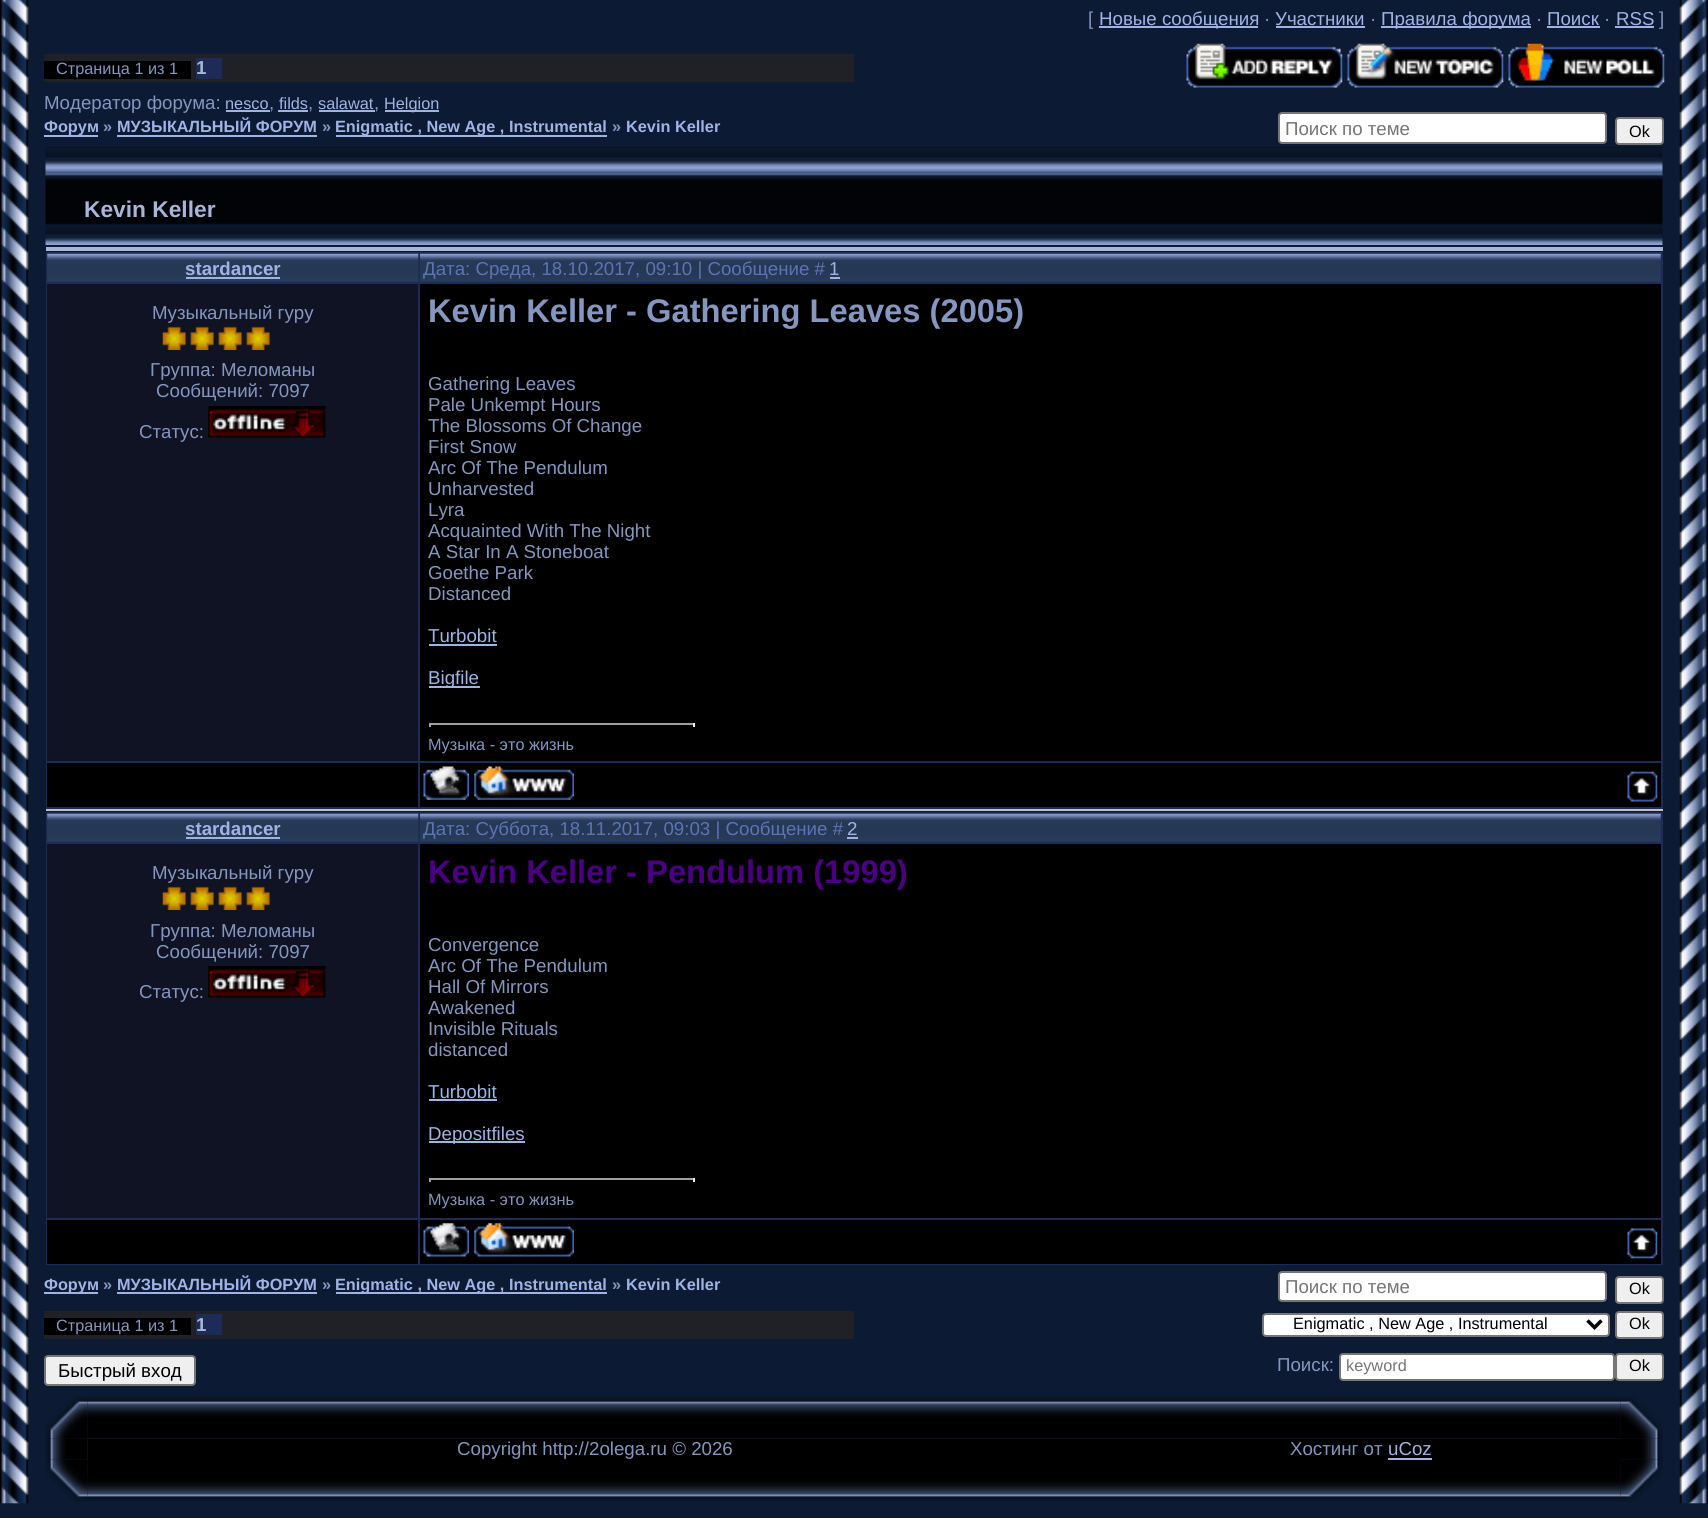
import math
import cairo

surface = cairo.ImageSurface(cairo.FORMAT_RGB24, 1708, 1518)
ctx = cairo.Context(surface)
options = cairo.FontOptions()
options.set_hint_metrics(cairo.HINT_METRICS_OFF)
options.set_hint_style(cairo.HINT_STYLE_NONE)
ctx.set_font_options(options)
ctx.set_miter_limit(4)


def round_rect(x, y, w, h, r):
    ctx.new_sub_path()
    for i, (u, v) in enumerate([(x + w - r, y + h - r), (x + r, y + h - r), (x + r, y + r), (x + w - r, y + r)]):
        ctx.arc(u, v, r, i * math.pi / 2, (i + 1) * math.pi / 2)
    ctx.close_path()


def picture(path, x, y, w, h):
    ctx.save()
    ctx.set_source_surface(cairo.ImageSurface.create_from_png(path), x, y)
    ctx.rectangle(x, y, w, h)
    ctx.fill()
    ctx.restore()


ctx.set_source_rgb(0.047, 0.106, 0.2)
ctx.paint()
picture("img1.png", 0, 0, 29, 1504)
ctx.select_font_face("Liberation Sans")
ctx.set_font_size(18.7)
ctx.set_source_rgb(0.522, 0.588, 0.749)
ctx.move_to(1088, 25)
ctx.show_text("[")
ctx.set_source_rgb(0.624, 0.706, 0.898)
ctx.rectangle(1099, 26, 159, 2)
ctx.fill()
ctx.move_to(1099, 25)
ctx.show_text("Новые сообщения")
ctx.set_source_rgb(0.522, 0.588, 0.749)
ctx.move_to(1264, 25)
ctx.show_text("·")
ctx.set_source_rgb(0.624, 0.706, 0.898)
ctx.move_to(1275, 25)
ctx.show_text("Участники")
ctx.rectangle(1276, 26, 89, 2)
ctx.fill()
ctx.set_source_rgb(0.522, 0.588, 0.749)
ctx.move_to(1370, 25)
ctx.show_text("·")
ctx.set_source_rgb(0.624, 0.706, 0.898)
ctx.rectangle(1381, 26, 150, 2)
ctx.fill()
ctx.move_to(1381, 25)
ctx.show_text("Правила форума")
ctx.set_source_rgb(0.522, 0.588, 0.749)
ctx.move_to(1536, 25)
ctx.show_text("·")
ctx.set_source_rgb(0.624, 0.706, 0.898)
ctx.move_to(1547, 25)
ctx.show_text("Поиск")
ctx.rectangle(1547, 26, 53, 2)
ctx.fill()
ctx.set_source_rgb(0.522, 0.588, 0.749)
ctx.move_to(1604, 25)
ctx.show_text("·")
ctx.set_source_rgb(0.624, 0.706, 0.898)
ctx.move_to(1616, 25)
ctx.show_text("RSS")
ctx.rectangle(1615, 26, 39, 2)
ctx.fill()
ctx.set_source_rgb(0.522, 0.588, 0.749)
ctx.move_to(1659, 25)
ctx.show_text("]")
ctx.set_source_rgb(0.122, 0.129, 0.153)
ctx.rectangle(44, 54, 810, 28)
ctx.fill()
ctx.set_source_rgb(0, 0, 0)
ctx.rectangle(44, 61, 147, 18)
ctx.fill()
ctx.set_font_size(16.3)
ctx.set_source_rgb(0.522, 0.588, 0.749)
ctx.move_to(56, 74)
ctx.show_text("Страница 1 из 1")
ctx.set_source_rgb(0.114, 0.173, 0.341)
ctx.rectangle(196, 58, 26, 21)
ctx.fill()
ctx.select_font_face("Liberation Sans", cairo.FONT_SLANT_NORMAL, cairo.FONT_WEIGHT_BOLD)
ctx.set_font_size(18.7)
ctx.set_source_rgb(0.663, 0.71, 0.847)
ctx.move_to(196, 74)
ctx.show_text("1")
picture("img2.png", 1186, 43, 157, 45)
picture("img3.png", 1347, 43, 157, 45)
picture("img4.png", 1508, 43, 157, 45)
ctx.select_font_face("Liberation Sans")
ctx.set_source_rgb(0.522, 0.588, 0.749)
ctx.move_to(44, 109)
ctx.show_text("Модератор форума:")
ctx.set_font_size(16.3)
ctx.set_source_rgb(0.624, 0.706, 0.898)
ctx.move_to(225, 109)
ctx.show_text("nesco")
ctx.set_font_size(18.7)
ctx.set_source_rgb(0.522, 0.588, 0.749)
ctx.move_to(269, 109)
ctx.show_text(",")
ctx.set_source_rgb(0.624, 0.706, 0.898)
ctx.rectangle(226, 110, 44, 2)
ctx.fill()
ctx.set_font_size(16.3)
ctx.move_to(279, 109)
ctx.show_text("filds")
ctx.set_font_size(18.7)
ctx.set_source_rgb(0.522, 0.588, 0.749)
ctx.move_to(308, 109)
ctx.show_text(",")
ctx.set_source_rgb(0.624, 0.706, 0.898)
ctx.rectangle(278, 110, 30, 2)
ctx.fill()
ctx.set_font_size(16.3)
ctx.move_to(318, 109)
ctx.show_text("salawat")
ctx.set_font_size(18.7)
ctx.set_source_rgb(0.522, 0.588, 0.749)
ctx.move_to(374, 109)
ctx.show_text(",")
ctx.set_source_rgb(0.624, 0.706, 0.898)
ctx.rectangle(319, 110, 56, 2)
ctx.fill()
ctx.rectangle(385, 110, 54, 2)
ctx.fill()
ctx.set_font_size(16.3)
ctx.move_to(384, 109)
ctx.show_text("Helgion")
ctx.rectangle(44, 135, 54, 2)
ctx.fill()
ctx.select_font_face("Liberation Sans", cairo.FONT_SLANT_NORMAL, cairo.FONT_WEIGHT_BOLD)
ctx.move_to(44, 132)
ctx.show_text("Форум")
ctx.set_source_rgb(0.522, 0.588, 0.749)
ctx.move_to(103, 132)
ctx.show_text("»")
ctx.set_source_rgb(0.624, 0.706, 0.898)
ctx.move_to(117, 132)
ctx.show_text("МУЗЫКАЛЬНЫЙ ФОРУМ")
ctx.rectangle(117, 135, 200, 2)
ctx.fill()
ctx.set_source_rgb(0.522, 0.588, 0.749)
ctx.move_to(322, 132)
ctx.show_text("»")
ctx.set_source_rgb(0.624, 0.706, 0.898)
ctx.rectangle(336, 135, 271, 2)
ctx.fill()
ctx.move_to(335, 132)
ctx.show_text("Enigmatic , New Age , Instrumental")
ctx.set_source_rgb(0.522, 0.588, 0.749)
ctx.move_to(612, 132)
ctx.show_text("»")
ctx.set_source_rgb(0.624, 0.706, 0.898)
ctx.move_to(626, 132)
ctx.show_text("Kevin Keller")
ctx.set_source_rgb(1, 1, 1)
round_rect(1279, 113, 327, 30, 3)
ctx.fill_preserve()
ctx.set_source_rgb(0.463, 0.463, 0.463)
ctx.stroke()
ctx.select_font_face("Liberation Sans")
ctx.set_font_size(18.7)
ctx.set_source_rgb(0.459, 0.459, 0.459)
ctx.move_to(1285, 135)
ctx.show_text("Поиск по теме")
ctx.set_source_rgb(0.937, 0.937, 0.937)
round_rect(1616, 118, 47, 26, 3)
ctx.fill_preserve()
ctx.set_source_rgb(0.463, 0.463, 0.463)
ctx.stroke()
ctx.set_font_size(16.3)
ctx.set_source_rgb(0, 0, 0)
ctx.move_to(1629, 137)
ctx.show_text("Ok")
picture("img5.png", 45, 147, 1618, 98)
ctx.select_font_face("Liberation Sans", cairo.FONT_SLANT_NORMAL, cairo.FONT_WEIGHT_BOLD)
ctx.set_font_size(22.75)
ctx.set_source_rgb(0.663, 0.71, 0.847)
ctx.move_to(84, 217)
ctx.show_text("Kevin Keller")
ctx.rectangle(46, 247, 1617, 4)
ctx.fill()
ctx.set_source_rgb(0.753, 0.753, 0.753)
ctx.rectangle(46, 809, 1617, 2)
ctx.fill()
ctx.set_source_rgb(0.114, 0.173, 0.341)
ctx.rectangle(46, 252, 1617, 557)
ctx.fill()
picture("img6.png", 47, 253, 372, 29)
ctx.set_font_size(18.7)
ctx.set_source_rgb(0.624, 0.706, 0.898)
ctx.move_to(185, 275)
ctx.show_text("stardancer")
ctx.rectangle(186, 277, 94, 2)
ctx.fill()
picture("img7.png", 420, 253, 1241, 29)
ctx.select_font_face("Liberation Sans")
ctx.set_source_rgb(0.365, 0.455, 0.698)
ctx.move_to(423, 275)
ctx.show_text("Дата: Среда, 18.10.2017, 09:10 | Сообщение #")
ctx.set_source_rgb(0.624, 0.706, 0.898)
ctx.move_to(829, 275)
ctx.show_text("1")
ctx.rectangle(830, 277, 10, 2)
ctx.fill()
ctx.set_source_rgb(0.059, 0.078, 0.141)
ctx.rectangle(47, 284, 371, 477)
ctx.fill()
ctx.set_source_rgb(0.522, 0.588, 0.749)
ctx.move_to(152, 319)
ctx.show_text("Музыкальный гуру")
picture("img8.png", 162, 326, 108, 24)
ctx.move_to(150, 376)
ctx.show_text("Группа: Меломаны")
ctx.move_to(156, 397)
ctx.show_text("Сообщений: 7097")
ctx.move_to(139, 438)
ctx.show_text("Статус:")
picture("img9.png", 208, 406, 118, 32)
ctx.set_source_rgb(0, 0, 0)
ctx.rectangle(420, 284, 1241, 477)
ctx.fill()
ctx.select_font_face("Liberation Sans", cairo.FONT_SLANT_NORMAL, cairo.FONT_WEIGHT_BOLD)
ctx.set_font_size(32.7)
ctx.set_source_rgb(0.522, 0.588, 0.749)
ctx.move_to(428, 322)
ctx.show_text("Kevin Keller - Gathering Leaves (2005)")
ctx.select_font_face("Liberation Sans")
ctx.set_font_size(18.7)
ctx.move_to(428, 390)
ctx.show_text("Gathering Leaves")
ctx.move_to(428, 411)
ctx.show_text("Pale Unkempt Hours")
ctx.move_to(428, 432)
ctx.show_text("The Blossoms Of Change")
ctx.move_to(428, 453)
ctx.show_text("First Snow")
ctx.move_to(428, 474)
ctx.show_text("Arc Of The Pendulum")
ctx.move_to(428, 495)
ctx.show_text("Unharvested")
ctx.move_to(428, 516)
ctx.show_text("Lyra")
ctx.move_to(428, 537)
ctx.show_text("Acquainted With The Night")
ctx.move_to(428, 558)
ctx.show_text("A Star In A Stoneboat")
ctx.move_to(428, 579)
ctx.show_text("Goethe Park")
ctx.move_to(428, 600)
ctx.show_text("Distanced")
ctx.set_source_rgb(0.624, 0.706, 0.898)
ctx.move_to(428, 642)
ctx.show_text("Turbobit")
ctx.rectangle(429, 644, 68, 2)
ctx.fill()
ctx.rectangle(429, 686, 51, 2)
ctx.fill()
ctx.move_to(428, 684)
ctx.show_text("Bigfile")
ctx.set_source_rgb(0.624, 0.624, 0.624)
ctx.rectangle(429, 723, 266, 2)
ctx.fill()
ctx.set_source_rgb(0.933, 0.933, 0.933)
ctx.rectangle(693, 723, 2, 4)
ctx.fill()
ctx.set_source_rgb(0.624, 0.624, 0.624)
ctx.rectangle(429, 723, 2, 4)
ctx.fill()
ctx.set_font_size(16.3)
ctx.set_source_rgb(0.522, 0.588, 0.749)
ctx.move_to(428, 750)
ctx.show_text("Музыка - это жизнь")
ctx.set_source_rgb(0, 0, 0)
ctx.rectangle(47, 763, 371, 44)
ctx.fill()
ctx.rectangle(420, 763, 1241, 44)
ctx.fill()
picture("img10.png", 423, 766, 46, 34)
picture("img11.png", 474, 766, 100, 34)
picture("img12.png", 1627, 771, 31, 31)
ctx.set_source_rgb(0.114, 0.173, 0.341)
ctx.rectangle(46, 812, 1617, 453)
ctx.fill()
picture("img6.png", 47, 813, 372, 29)
ctx.select_font_face("Liberation Sans", cairo.FONT_SLANT_NORMAL, cairo.FONT_WEIGHT_BOLD)
ctx.set_font_size(18.7)
ctx.set_source_rgb(0.624, 0.706, 0.898)
ctx.move_to(185, 835)
ctx.show_text("stardancer")
ctx.rectangle(186, 837, 94, 2)
ctx.fill()
picture("img7.png", 420, 813, 1241, 29)
ctx.select_font_face("Liberation Sans")
ctx.set_source_rgb(0.365, 0.455, 0.698)
ctx.move_to(423, 835)
ctx.show_text("Дата: Суббота, 18.11.2017, 09:03 | Сообщение #")
ctx.set_source_rgb(0.624, 0.706, 0.898)
ctx.move_to(847, 835)
ctx.show_text("2")
ctx.rectangle(847, 837, 11, 2)
ctx.fill()
ctx.set_source_rgb(0.059, 0.078, 0.141)
ctx.rectangle(47, 844, 371, 374)
ctx.fill()
ctx.set_source_rgb(0.522, 0.588, 0.749)
ctx.move_to(152, 879)
ctx.show_text("Музыкальный гуру")
picture("img8.png", 162, 886, 108, 24)
ctx.move_to(150, 937)
ctx.show_text("Группа: Меломаны")
ctx.move_to(156, 958)
ctx.show_text("Сообщений: 7097")
ctx.move_to(139, 998)
ctx.show_text("Статус:")
picture("img9.png", 208, 966, 118, 32)
ctx.set_source_rgb(0, 0, 0)
ctx.rectangle(420, 844, 1241, 374)
ctx.fill()
ctx.select_font_face("Liberation Sans", cairo.FONT_SLANT_NORMAL, cairo.FONT_WEIGHT_BOLD)
ctx.set_font_size(32.7)
ctx.set_source_rgb(0.294, 0, 0.51)
ctx.move_to(428, 883)
ctx.show_text("Kevin Keller - Pendulum (1999)")
ctx.select_font_face("Liberation Sans")
ctx.set_font_size(18.7)
ctx.set_source_rgb(0.522, 0.588, 0.749)
ctx.move_to(428, 951)
ctx.show_text("Convergence")
ctx.move_to(428, 972)
ctx.show_text("Arc Of The Pendulum")
ctx.move_to(428, 993)
ctx.show_text("Hall Of Mirrors")
ctx.move_to(428, 1014)
ctx.show_text("Awakened")
ctx.move_to(428, 1035)
ctx.show_text("Invisible Rituals")
ctx.move_to(428, 1056)
ctx.show_text("distanced")
ctx.set_source_rgb(0.624, 0.706, 0.898)
ctx.move_to(428, 1098)
ctx.show_text("Turbobit")
ctx.rectangle(429, 1099, 68, 2)
ctx.fill()
ctx.rectangle(429, 1141, 96, 2)
ctx.fill()
ctx.move_to(428, 1140)
ctx.show_text("Depositfiles")
ctx.set_source_rgb(0.624, 0.624, 0.624)
ctx.rectangle(429, 1178, 266, 2)
ctx.fill()
ctx.set_source_rgb(0.933, 0.933, 0.933)
ctx.rectangle(693, 1178, 2, 4)
ctx.fill()
ctx.set_source_rgb(0.624, 0.624, 0.624)
ctx.rectangle(429, 1178, 2, 4)
ctx.fill()
ctx.set_font_size(16.3)
ctx.set_source_rgb(0.522, 0.588, 0.749)
ctx.move_to(428, 1205)
ctx.show_text("Музыка - это жизнь")
ctx.set_source_rgb(0, 0, 0)
ctx.rectangle(47, 1220, 371, 44)
ctx.fill()
ctx.rectangle(420, 1220, 1241, 44)
ctx.fill()
picture("img13.png", 423, 1223, 46, 34)
picture("img14.png", 474, 1223, 100, 34)
picture("img15.png", 1627, 1228, 31, 31)
ctx.set_source_rgb(0.624, 0.706, 0.898)
ctx.rectangle(44, 1292, 54, 2)
ctx.fill()
ctx.select_font_face("Liberation Sans", cairo.FONT_SLANT_NORMAL, cairo.FONT_WEIGHT_BOLD)
ctx.move_to(44, 1290)
ctx.show_text("Форум")
ctx.set_source_rgb(0.522, 0.588, 0.749)
ctx.move_to(103, 1290)
ctx.show_text("»")
ctx.set_source_rgb(0.624, 0.706, 0.898)
ctx.move_to(117, 1290)
ctx.show_text("МУЗЫКАЛЬНЫЙ ФОРУМ")
ctx.rectangle(117, 1292, 200, 2)
ctx.fill()
ctx.set_source_rgb(0.522, 0.588, 0.749)
ctx.move_to(322, 1290)
ctx.show_text("»")
ctx.set_source_rgb(0.624, 0.706, 0.898)
ctx.rectangle(336, 1292, 271, 2)
ctx.fill()
ctx.move_to(335, 1290)
ctx.show_text("Enigmatic , New Age , Instrumental")
ctx.set_source_rgb(0.522, 0.588, 0.749)
ctx.move_to(612, 1290)
ctx.show_text("»")
ctx.set_source_rgb(0.624, 0.706, 0.898)
ctx.move_to(626, 1290)
ctx.show_text("Kevin Keller")
ctx.set_source_rgb(1, 1, 1)
round_rect(1279, 1272, 327, 29, 3)
ctx.fill_preserve()
ctx.set_source_rgb(0.463, 0.463, 0.463)
ctx.stroke()
ctx.select_font_face("Liberation Sans")
ctx.set_font_size(18.7)
ctx.set_source_rgb(0.459, 0.459, 0.459)
ctx.move_to(1285, 1293)
ctx.show_text("Поиск по теме")
ctx.set_source_rgb(0.937, 0.937, 0.937)
round_rect(1616, 1277, 47, 26, 3)
ctx.fill_preserve()
ctx.set_source_rgb(0.463, 0.463, 0.463)
ctx.stroke()
ctx.set_font_size(16.3)
ctx.set_source_rgb(0, 0, 0)
ctx.move_to(1629, 1294)
ctx.show_text("Ok")
ctx.set_source_rgb(0.122, 0.129, 0.153)
ctx.rectangle(44, 1311, 810, 28)
ctx.fill()
ctx.set_source_rgb(0, 0, 0)
ctx.rectangle(44, 1318, 147, 17)
ctx.fill()
ctx.set_source_rgb(0.522, 0.588, 0.749)
ctx.move_to(56, 1331)
ctx.show_text("Страница 1 из 1")
ctx.set_source_rgb(0.114, 0.173, 0.341)
ctx.rectangle(196, 1314, 26, 21)
ctx.fill()
ctx.select_font_face("Liberation Sans", cairo.FONT_SLANT_NORMAL, cairo.FONT_WEIGHT_BOLD)
ctx.set_font_size(18.7)
ctx.set_source_rgb(0.663, 0.71, 0.847)
ctx.move_to(196, 1331)
ctx.show_text("1")
ctx.set_source_rgb(1, 1, 1)
round_rect(1263, 1314, 346, 22, 3)
ctx.fill_preserve()
ctx.set_source_rgb(0.463, 0.463, 0.463)
ctx.stroke()
ctx.new_path()
ctx.move_to(1587.5, 1320.5)
ctx.line_to(1594.5, 1327.5)
ctx.line_to(1601.5, 1320.5)
ctx.set_source_rgb(0, 0, 0)
ctx.set_line_width(3.5)
ctx.stroke()
ctx.select_font_face("Liberation Sans")
ctx.set_font_size(16.3)
ctx.move_to(1293, 1329)
ctx.show_text("Enigmatic , New Age , Instrumental")
ctx.set_source_rgb(0.937, 0.937, 0.937)
round_rect(1616, 1312, 47, 26, 3)
ctx.fill_preserve()
ctx.set_source_rgb(0.463, 0.463, 0.463)
ctx.set_line_width(2)
ctx.stroke()
ctx.set_source_rgb(0, 0, 0)
ctx.move_to(1629, 1329)
ctx.show_text("Ok")
ctx.set_source_rgb(0.937, 0.937, 0.937)
round_rect(45, 1356, 150, 29, 3)
ctx.fill_preserve()
ctx.set_source_rgb(0.463, 0.463, 0.463)
ctx.stroke()
ctx.set_font_size(18.7)
ctx.set_source_rgb(0, 0, 0)
ctx.move_to(58, 1377)
ctx.show_text("Быстрый вход")
ctx.set_source_rgb(0.522, 0.588, 0.749)
ctx.move_to(1277, 1371)
ctx.show_text("Поиск:")
ctx.set_source_rgb(1, 1, 1)
round_rect(1340, 1354, 274, 26, 3)
ctx.fill_preserve()
ctx.set_source_rgb(0.463, 0.463, 0.463)
ctx.stroke()
ctx.set_font_size(16.3)
ctx.set_source_rgb(0.459, 0.459, 0.459)
ctx.move_to(1346, 1371)
ctx.show_text("keyword")
ctx.set_source_rgb(0.937, 0.937, 0.937)
round_rect(1616, 1354, 47, 26, 3)
ctx.fill_preserve()
ctx.set_source_rgb(0.463, 0.463, 0.463)
ctx.stroke()
ctx.set_source_rgb(0, 0, 0)
ctx.move_to(1629, 1371)
ctx.show_text("Ok")
picture("img17.png", 87, 1396, 1534, 43)
picture("img19.png", 45, 1438, 43, 22)
picture("img16.png", 45, 1396, 43, 43)
ctx.rectangle(88, 1439, 1533, 21)
ctx.fill()
picture("img20.png", 1620, 1438, 43, 22)
picture("img18.png", 1620, 1396, 43, 43)
ctx.set_font_size(18.7)
ctx.set_source_rgb(0.522, 0.588, 0.749)
ctx.move_to(457, 1455)
ctx.show_text("Copyright http://2olega.ru © 2026")
ctx.move_to(1290, 1455)
ctx.show_text("Хостинг от")
ctx.set_source_rgb(0.624, 0.706, 0.898)
ctx.move_to(1388, 1455)
ctx.show_text("uCoz")
picture("img22.png", 87, 1459, 1534, 43)
ctx.rectangle(1388, 1458, 44, 2)
ctx.fill()
picture("img21.png", 45, 1459, 43, 43)
picture("img23.png", 1620, 1459, 43, 43)
picture("img24.png", 1679, 0, 29, 1504)
surface.write_to_png("page.png")
